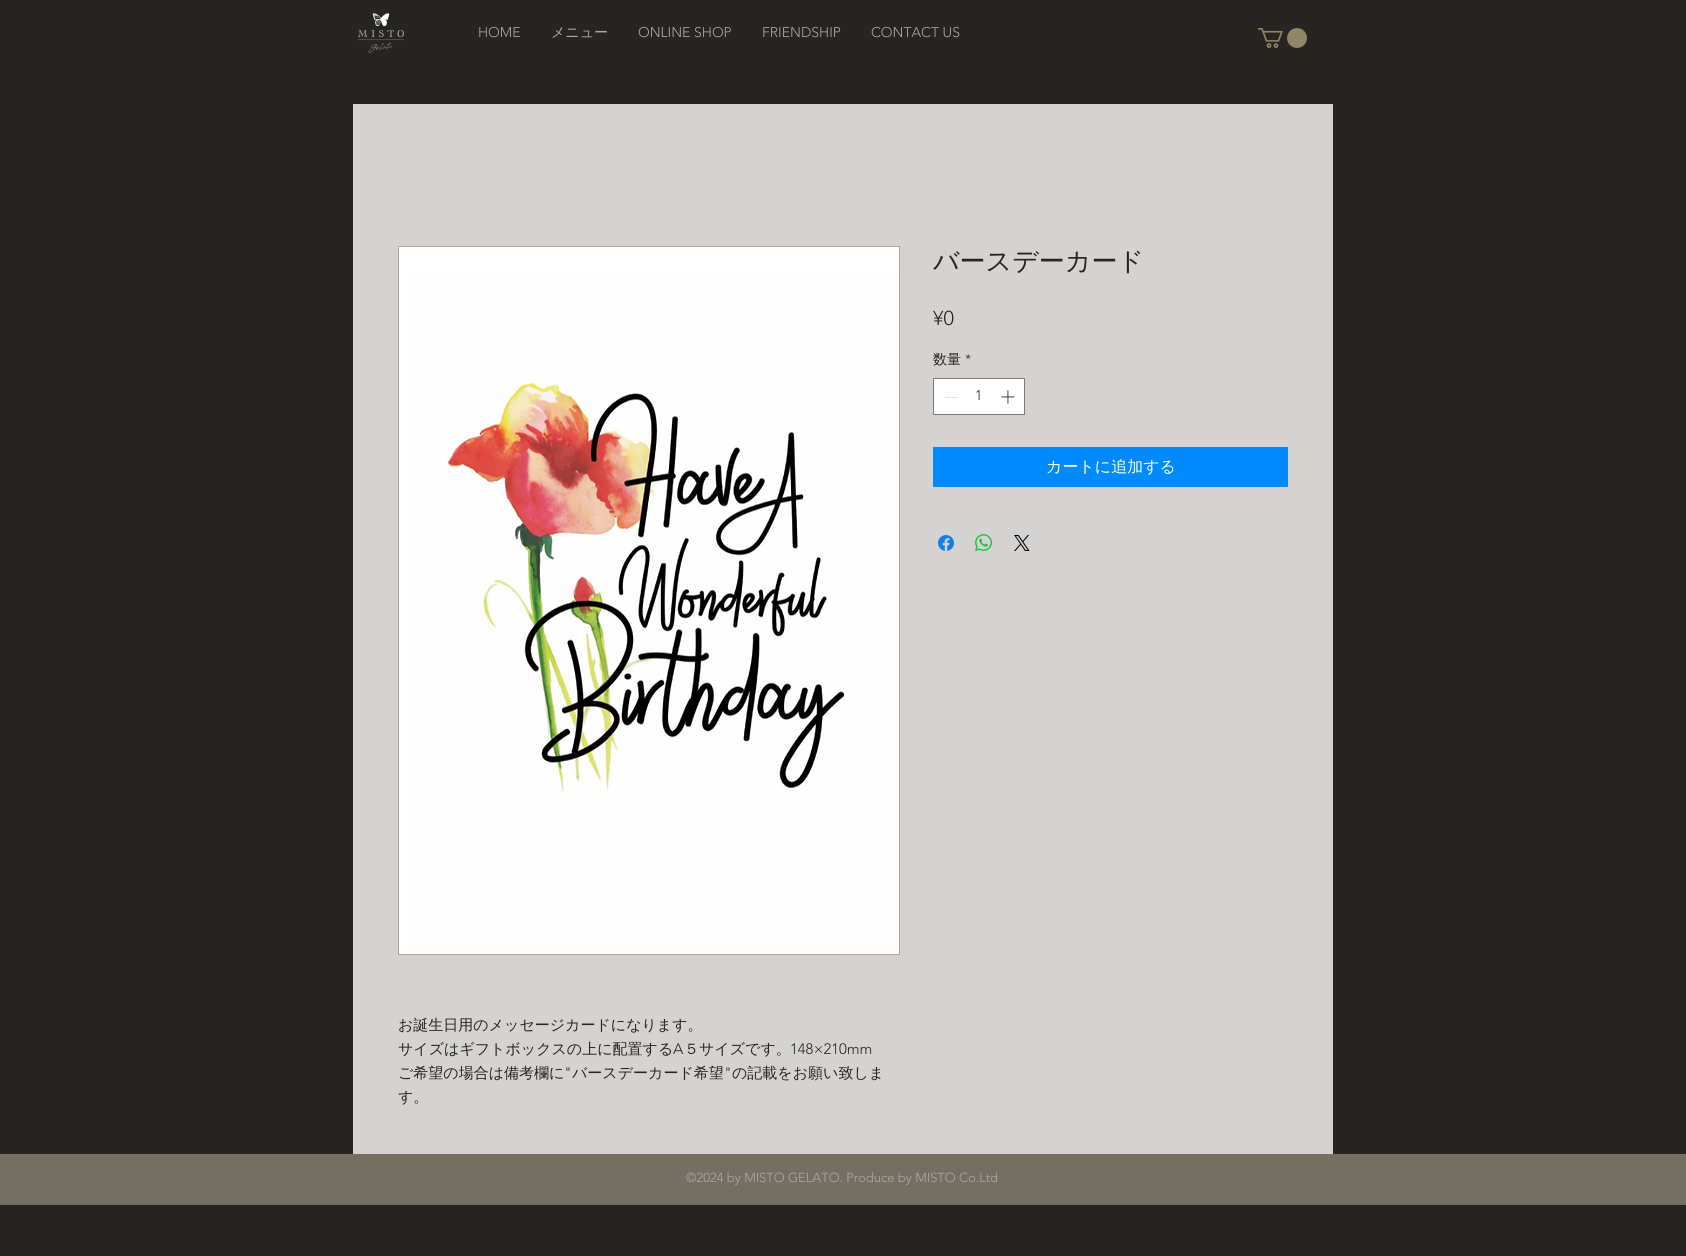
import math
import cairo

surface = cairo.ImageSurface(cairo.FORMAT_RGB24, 1686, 1256)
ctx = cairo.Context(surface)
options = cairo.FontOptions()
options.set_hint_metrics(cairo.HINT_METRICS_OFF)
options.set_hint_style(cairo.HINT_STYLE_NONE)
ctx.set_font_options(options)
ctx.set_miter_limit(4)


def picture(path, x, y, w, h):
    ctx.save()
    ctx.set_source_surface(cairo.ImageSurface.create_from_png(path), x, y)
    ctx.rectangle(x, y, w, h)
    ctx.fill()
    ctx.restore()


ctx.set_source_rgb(0.153, 0.145, 0.129)
ctx.paint()
picture("img1.png", 358, 13, 46, 40)
ctx.select_font_face("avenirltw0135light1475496 Light")
ctx.set_font_size(14)
ctx.set_source_rgb(0.678, 0.663, 0.627)
ctx.move_to(478, 37)
ctx.show_text("HOME")
ctx.select_font_face("WenQuanYi Zen Hei Medium")
ctx.move_to(551, 37)
ctx.show_text("メニュー")
ctx.select_font_face("avenirltw0135light1475496 Light")
ctx.move_to(638, 37)
ctx.show_text("ONLINE SHOP")
ctx.move_to(762, 37)
ctx.show_text("FRIENDSHIP")
ctx.move_to(871, 37)
ctx.show_text("CONTACT US")
picture("img2.png", 1258, 28, 49, 20)
ctx.set_source_rgb(0.831, 0.827, 0.824)
ctx.rectangle(353, 104, 980, 1050)
ctx.fill()
ctx.select_font_face("WenQuanYi Zen Hei Medium")
ctx.set_font_size(26)
ctx.set_source_rgb(0.153, 0.145, 0.129)
ctx.move_to(933, 270)
ctx.show_text("バースデーカード")
ctx.select_font_face("avenirltw0135light1475496 Light")
ctx.set_font_size(20)
ctx.move_to(933, 325)
ctx.show_text("¥0")
ctx.select_font_face("WenQuanYi Zen Hei Medium")
ctx.set_font_size(14)
ctx.move_to(933, 364)
ctx.show_text("数量")
ctx.select_font_face("avenirltw0135light1475496 Light")
ctx.move_to(965, 364)
ctx.show_text("*")
ctx.set_source_rgb(1, 1, 1)
ctx.rectangle(933.5, 378.5, 91, 36)
ctx.fill_preserve()
ctx.set_source_rgb(0.49, 0.486, 0.478)
ctx.set_line_width(1)
ctx.stroke()
ctx.set_source_rgb(0.89, 0.89, 0.89)
ctx.rectangle(945, 397, 13, 1)
ctx.fill()
ctx.set_source_rgb(0.153, 0.145, 0.129)
ctx.move_to(975, 400)
ctx.show_text("1")
picture("img3.png", 1001, 390, 14, 14)
ctx.set_source_rgb(0, 0.541, 0.988)
ctx.rectangle(933, 447, 355, 40)
ctx.fill()
ctx.select_font_face("WenQuanYi Zen Hei Medium")
ctx.set_font_size(16)
ctx.set_source_rgb(1, 1, 1)
ctx.move_to(1046, 472)
ctx.show_text("カートに追加する")
picture("img4.png", 938, 535, 16, 16)
picture("img5.png", 975, 534, 17, 17)
picture("img6.png", 1014, 535, 16, 16)
ctx.rectangle(398.5, 246.5, 501, 708)
ctx.set_source_rgb(0.678, 0.663, 0.627)
ctx.stroke()
picture("img7.png", 399, 247, 500, 707)
ctx.set_font_size(15)
ctx.set_source_rgb(0.153, 0.145, 0.129)
ctx.move_to(398, 1030)
ctx.show_text("お誕生日用のメッセージカードになります。")
ctx.move_to(398, 1054)
ctx.show_text("サイズはギフトボックスの上に配置する")
ctx.select_font_face("avenirltw0135light1475496 Light")
ctx.move_to(673, 1054)
ctx.show_text("A")
ctx.select_font_face("WenQuanYi Zen Hei Medium")
ctx.move_to(684, 1054)
ctx.show_text("５サイズです。")
ctx.select_font_face("avenirltw0135light1475496 Light")
ctx.move_to(790, 1054)
ctx.show_text("148×210mm")
ctx.select_font_face("WenQuanYi Zen Hei Medium")
ctx.move_to(398, 1078)
ctx.show_text("ご希望の場合は備考欄に")
ctx.select_font_face("avenirltw0135light1475496 Light")
ctx.move_to(564, 1078)
ctx.show_text("\"")
ctx.select_font_face("WenQuanYi Zen Hei Medium")
ctx.move_to(572, 1078)
ctx.show_text("バースデーカード希望")
ctx.select_font_face("avenirltw0135light1475496 Light")
ctx.move_to(724, 1078)
ctx.show_text("\"")
ctx.select_font_face("WenQuanYi Zen Hei Medium")
ctx.move_to(732, 1078)
ctx.show_text("の記載をお願い致しま")
ctx.move_to(398, 1102)
ctx.show_text("す。")
ctx.set_source_rgb(0.459, 0.435, 0.388)
ctx.rectangle(0, 1154, 1686, 51)
ctx.fill()
ctx.select_font_face("avenirltw0135light1475496 Light")
ctx.set_font_size(13)
ctx.set_source_rgb(0.678, 0.663, 0.627)
ctx.move_to(686, 1182)
ctx.show_text("©2024 by MISTO GELATO. Produce by MISTO Co.Ltd")
surface.write_to_png("page.png")
